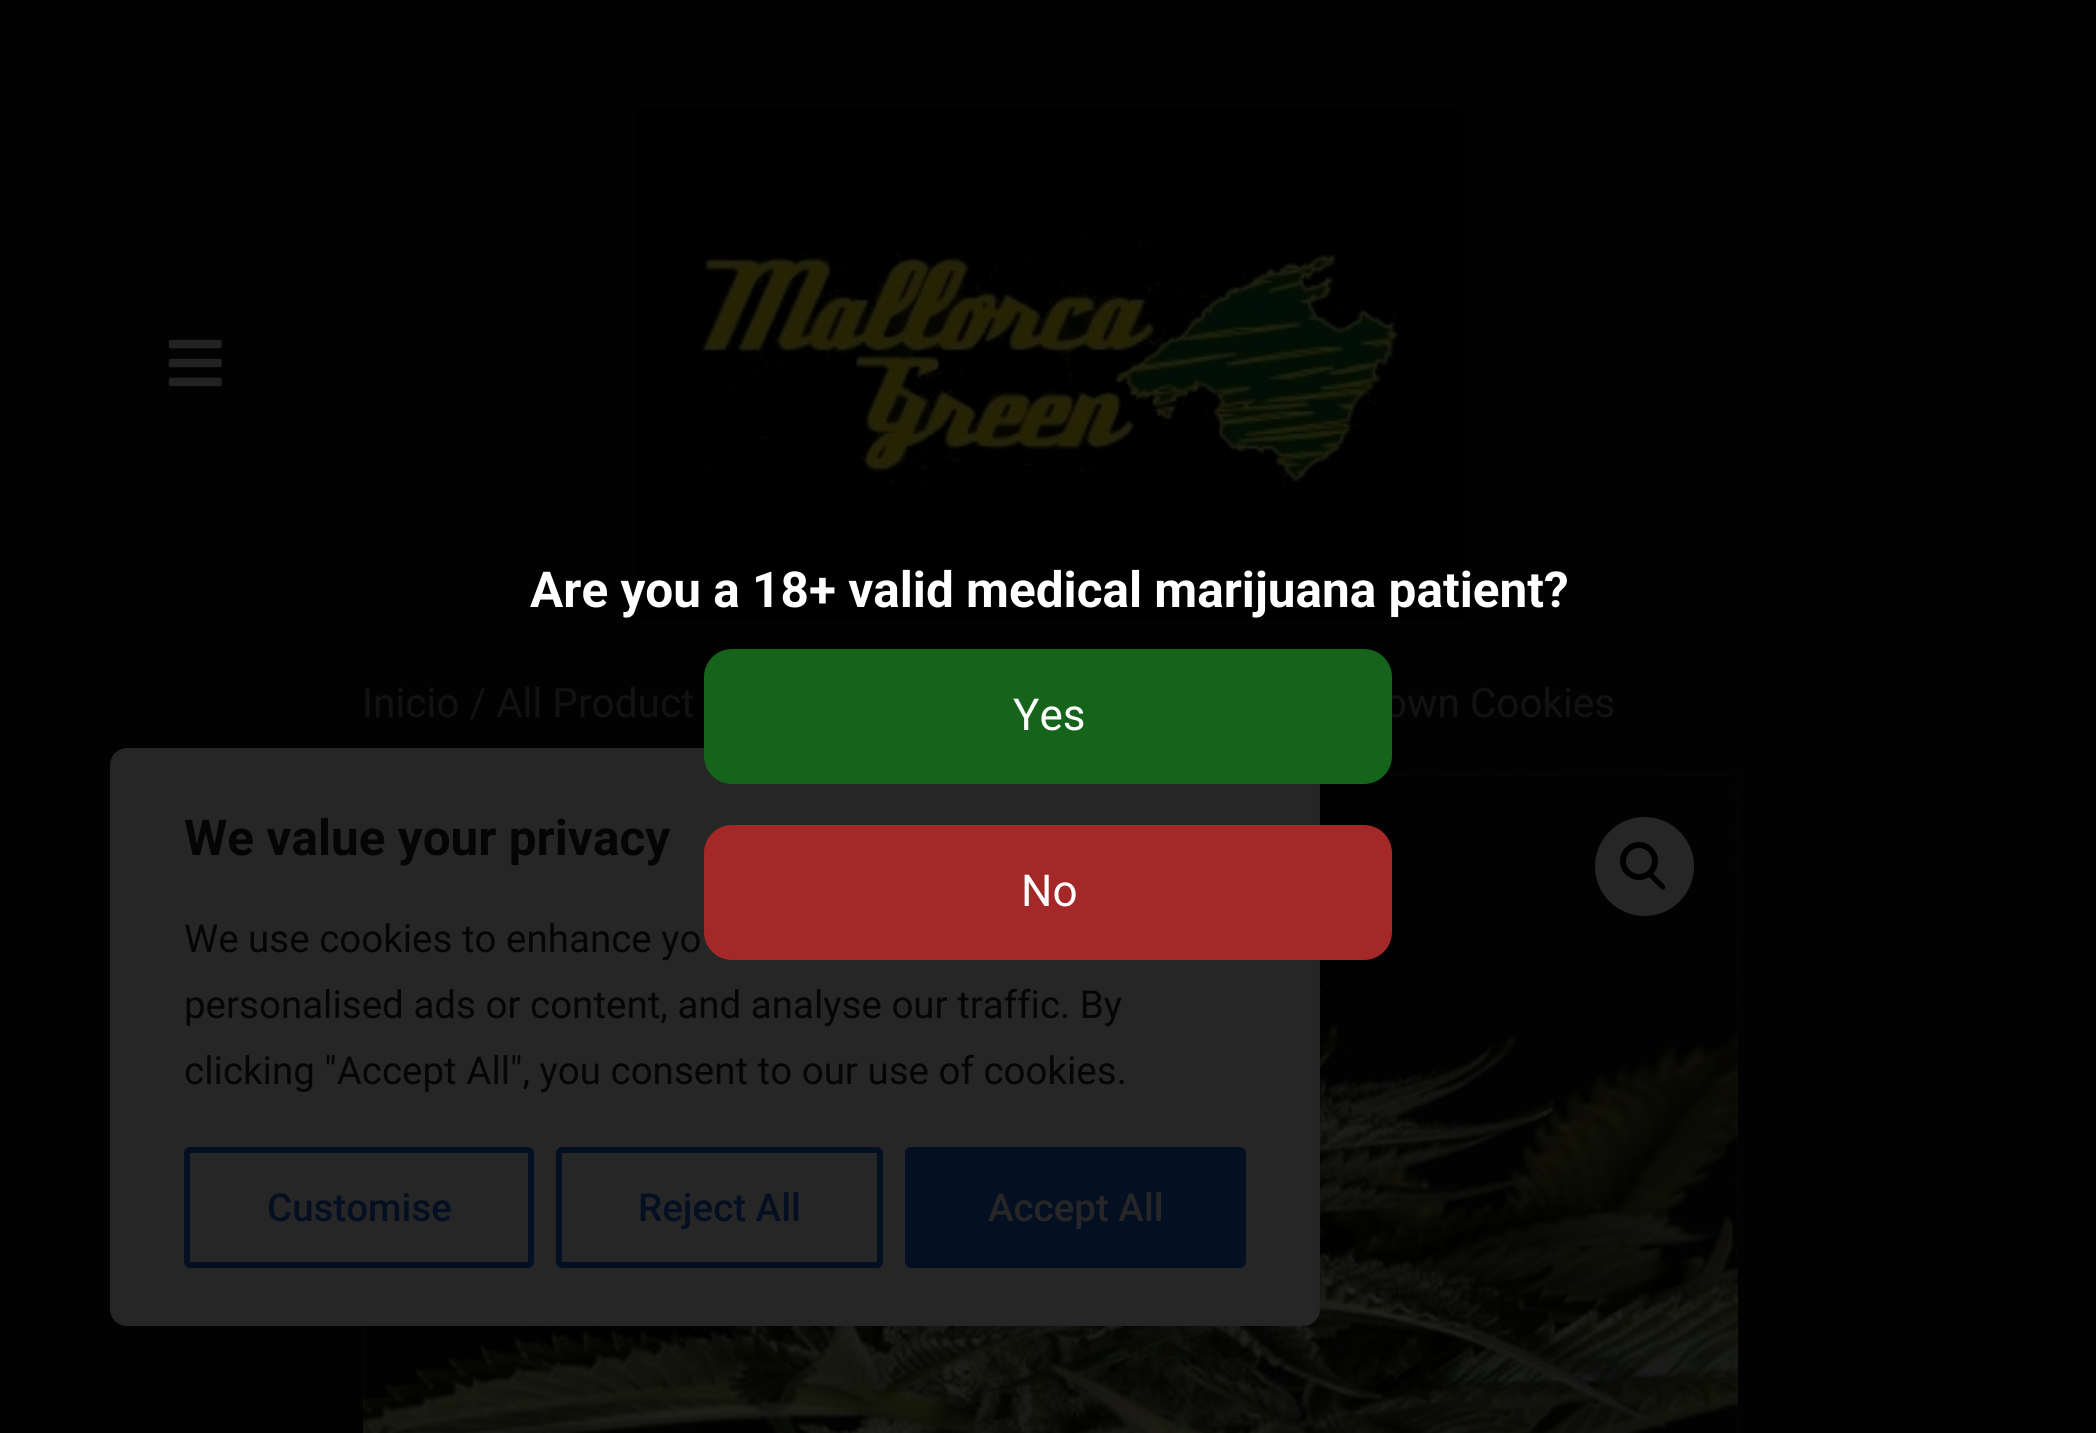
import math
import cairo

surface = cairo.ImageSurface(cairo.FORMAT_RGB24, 2096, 1433)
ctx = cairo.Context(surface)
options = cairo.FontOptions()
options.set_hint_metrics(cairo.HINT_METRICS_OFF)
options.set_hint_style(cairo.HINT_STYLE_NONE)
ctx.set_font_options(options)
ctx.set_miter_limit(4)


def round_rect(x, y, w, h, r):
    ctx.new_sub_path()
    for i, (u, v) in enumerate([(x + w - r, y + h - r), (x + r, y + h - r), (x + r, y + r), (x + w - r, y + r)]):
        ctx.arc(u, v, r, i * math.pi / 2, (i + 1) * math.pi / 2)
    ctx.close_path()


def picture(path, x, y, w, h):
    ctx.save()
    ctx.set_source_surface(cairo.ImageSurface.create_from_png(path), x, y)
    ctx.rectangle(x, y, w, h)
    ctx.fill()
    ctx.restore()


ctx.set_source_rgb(0.008, 0.008, 0.008)
ctx.paint()
picture("img1.png", 168, 339, 54, 48)
picture("img2.png", 638, 110, 825, 509)
ctx.select_font_face("Roboto", cairo.FONT_SLANT_NORMAL, cairo.FONT_WEIGHT_BOLD)
ctx.set_font_size(49.5)
ctx.set_source_rgb(1, 1, 1)
ctx.move_to(530, 607)
ctx.show_text("Are you a 18+ valid medical marijuana patient?")
ctx.select_font_face("Roboto")
ctx.set_font_size(40.5)
ctx.set_source_rgb(0.071, 0.071, 0.071)
ctx.move_to(1384, 717)
ctx.show_text("own Cookies")
picture("img3.png", 363, 773, 1375, 660)
ctx.set_source_rgb(0.149, 0.149, 0.149)
round_rect(111.5, 749.5, 1207, 575, 15.5)
ctx.fill_preserve()
ctx.set_source_rgb(0.145, 0.145, 0.145)
ctx.set_line_width(3)
ctx.stroke()
ctx.set_source_rgb(0.086, 0.392, 0.106)
round_rect(704, 649, 688, 135, 28)
ctx.fill()
ctx.set_font_size(44)
ctx.set_source_rgb(1, 1, 1)
ctx.move_to(1013, 730)
ctx.show_text("Yes")
ctx.set_source_rgb(0.643, 0.157, 0.157)
round_rect(704, 825, 688, 135, 28)
ctx.fill()
ctx.set_source_rgb(1, 1, 1)
ctx.move_to(1021, 906)
ctx.show_text("No")
ctx.set_font_size(40.5)
ctx.set_source_rgb(0.071, 0.071, 0.071)
ctx.move_to(362, 717)
ctx.show_text("Inicio / All Product")
ctx.set_source_rgb(0.149, 0.149, 0.149)
ctx.new_path()
ctx.arc(1644.5, 866.5, 49.5, 0, 2 * math.pi)
ctx.fill()
ctx.arc(1639, 861, 16, 0, 2 * math.pi)
ctx.set_source_rgb(0, 0, 0)
ctx.set_line_width(6)
ctx.stroke()
ctx.new_path()
ctx.move_to(1649, 873.5)
ctx.curve_to(1650, 872.5, 1652, 872.5, 1653, 873.5)
ctx.line_to(1664.5, 885)
ctx.curve_to(1665.5, 886, 1665.5, 888, 1664.5, 889)
ctx.curve_to(1663.5, 890, 1662, 890, 1661, 889)
ctx.line_to(1649, 877)
ctx.curve_to(1648, 876, 1648, 874.5, 1649, 873.5)
ctx.close_path()
ctx.fill()
ctx.select_font_face("Roboto", cairo.FONT_SLANT_NORMAL, cairo.FONT_WEIGHT_BOLD)
ctx.set_font_size(49.5)
ctx.set_source_rgb(0.02, 0.02, 0.02)
ctx.move_to(184, 855)
ctx.show_text("We value your privacy")
ctx.select_font_face("Roboto")
ctx.set_font_size(38.5)
ctx.move_to(184, 952)
ctx.show_text("We use cookies to enhance yo")
ctx.move_to(184, 1018)
ctx.show_text("personalised ads or content, and analyse our traffic. By")
ctx.move_to(184, 1084)
ctx.show_text("clicking \"Accept All\", you consent to our use of cookies.")
round_rect(187, 1150, 344, 115, 3)
ctx.set_source_rgb(0.016, 0.059, 0.129)
ctx.stroke()
ctx.select_font_face("Roboto Medium")
ctx.move_to(267, 1221)
ctx.show_text("Customise")
round_rect(559, 1150, 321, 115, 3)
ctx.stroke()
ctx.move_to(638, 1221)
ctx.show_text("Reject All")
round_rect(908, 1150, 335, 115, 3)
ctx.fill_preserve()
ctx.stroke()
ctx.set_source_rgb(0.149, 0.149, 0.149)
ctx.move_to(988, 1221)
ctx.show_text("Accept All")
surface.write_to_png("page.png")
